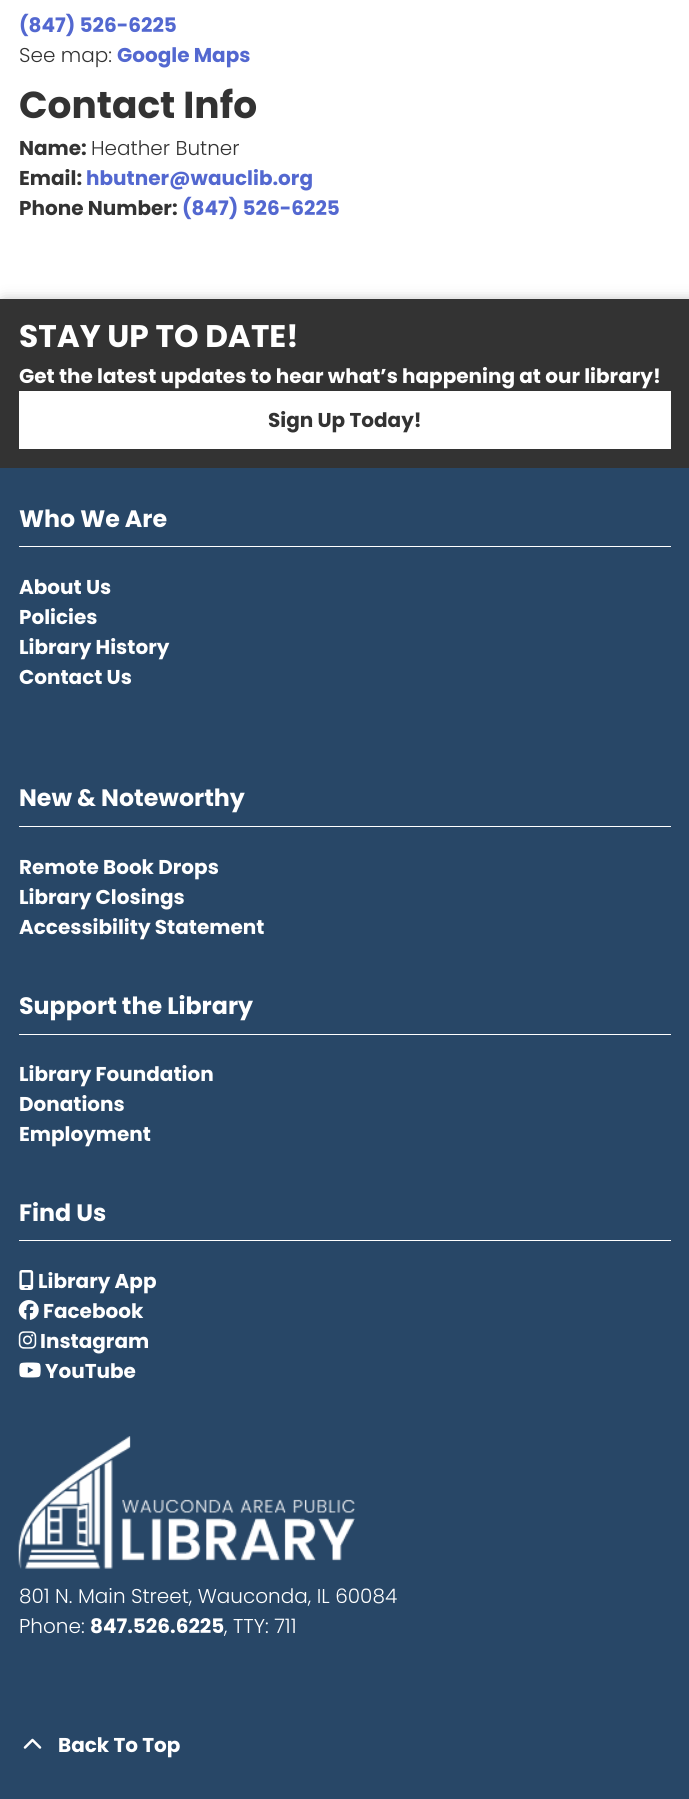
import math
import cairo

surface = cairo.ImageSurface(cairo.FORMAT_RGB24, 689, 1799)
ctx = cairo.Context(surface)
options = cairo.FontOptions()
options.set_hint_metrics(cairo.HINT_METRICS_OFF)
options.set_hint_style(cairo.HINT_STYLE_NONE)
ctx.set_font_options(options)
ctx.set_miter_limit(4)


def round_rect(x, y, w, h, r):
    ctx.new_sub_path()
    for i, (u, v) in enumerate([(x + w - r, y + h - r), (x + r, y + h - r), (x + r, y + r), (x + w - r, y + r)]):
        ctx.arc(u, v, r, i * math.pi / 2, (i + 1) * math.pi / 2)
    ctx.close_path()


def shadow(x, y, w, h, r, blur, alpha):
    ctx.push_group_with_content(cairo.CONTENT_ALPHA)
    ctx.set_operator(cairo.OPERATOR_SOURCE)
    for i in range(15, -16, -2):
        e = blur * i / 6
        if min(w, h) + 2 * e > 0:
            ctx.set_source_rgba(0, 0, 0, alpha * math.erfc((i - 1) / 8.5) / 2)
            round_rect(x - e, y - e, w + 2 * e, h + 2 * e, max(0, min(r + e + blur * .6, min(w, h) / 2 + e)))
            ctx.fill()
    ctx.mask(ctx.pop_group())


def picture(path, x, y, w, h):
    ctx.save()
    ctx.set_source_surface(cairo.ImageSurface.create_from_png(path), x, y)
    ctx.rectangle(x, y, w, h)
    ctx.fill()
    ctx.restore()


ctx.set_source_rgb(1, 1, 1)
ctx.paint()
ctx.select_font_face("Poppins", cairo.FONT_SLANT_NORMAL, cairo.FONT_WEIGHT_BOLD)
ctx.set_font_size(20)
ctx.set_source_rgb(0.325, 0.408, 0.816)
ctx.move_to(19, 32)
ctx.show_text("(847) 526-6225")
ctx.select_font_face("Poppins Light")
ctx.set_source_rgb(0.2, 0.2, 0.2)
ctx.move_to(19, 62)
ctx.show_text("See map:")
ctx.select_font_face("Poppins", cairo.FONT_SLANT_NORMAL, cairo.FONT_WEIGHT_BOLD)
ctx.set_source_rgb(0.325, 0.408, 0.816)
ctx.move_to(117, 62)
ctx.show_text("Google Maps")
ctx.set_font_size(37.5)
ctx.set_source_rgb(0.2, 0.2, 0.2)
ctx.move_to(19, 118)
ctx.show_text("Contact Info")
ctx.set_font_size(20)
ctx.move_to(19, 155)
ctx.show_text("Name:")
ctx.select_font_face("Poppins Light")
ctx.move_to(91, 155)
ctx.show_text("Heather Butner")
ctx.select_font_face("Poppins", cairo.FONT_SLANT_NORMAL, cairo.FONT_WEIGHT_BOLD)
ctx.move_to(19, 185)
ctx.show_text("Email:")
ctx.set_source_rgb(0.325, 0.408, 0.816)
ctx.move_to(86, 185)
ctx.show_text("hbutner@wauclib.org")
ctx.set_source_rgb(0.2, 0.2, 0.2)
ctx.move_to(19, 215)
ctx.show_text("Phone Number:")
ctx.set_source_rgb(0.325, 0.408, 0.816)
ctx.move_to(182, 215)
ctx.show_text("(847) 526-6225")
ctx.set_source_rgb(0, 0, 0)
shadow(4, 303, 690, 168, 0, 7.5, 0.4)
ctx.set_source_rgb(0.2, 0.2, 0.2)
ctx.rectangle(0, 299, 689, 169)
ctx.fill()
ctx.set_font_size(31.25)
ctx.set_source_rgb(1, 1, 1)
ctx.move_to(19, 347)
ctx.show_text("STAY UP TO DATE!")
ctx.set_font_size(20)
ctx.move_to(19, 383)
ctx.show_text("Get the latest updates to hear what’s happening at our library!")
ctx.rectangle(19, 391, 652, 58)
ctx.fill()
ctx.set_source_rgb(0.2, 0.2, 0.2)
ctx.move_to(268, 427)
ctx.show_text("Sign Up Today!")
ctx.set_source_rgb(0.157, 0.278, 0.404)
ctx.rectangle(0, 468, 689, 1331)
ctx.fill()
ctx.set_source_rgb(1, 1, 1)
ctx.rectangle(19, 546, 652, 1)
ctx.fill()
ctx.set_font_size(23.75)
ctx.move_to(19, 527)
ctx.show_text("Who We Are")
ctx.set_font_size(20)
ctx.move_to(19, 594)
ctx.show_text("About Us")
ctx.move_to(19, 624)
ctx.show_text("Policies")
ctx.move_to(19, 654)
ctx.show_text("Library History")
ctx.move_to(19, 684)
ctx.show_text("Contact Us")
ctx.rectangle(19, 826, 652, 1)
ctx.fill()
ctx.set_font_size(23.75)
ctx.move_to(19, 806)
ctx.show_text("New & Noteworthy")
ctx.set_font_size(20)
ctx.move_to(19, 874)
ctx.show_text("Remote Book Drops")
ctx.move_to(19, 904)
ctx.show_text("Library Closings")
ctx.move_to(19, 934)
ctx.show_text("Accessibility Statement")
ctx.rectangle(19, 1034, 652, 1)
ctx.fill()
ctx.set_font_size(23.75)
ctx.move_to(19, 1014)
ctx.show_text("Support the Library")
ctx.set_font_size(20)
ctx.move_to(19, 1081)
ctx.show_text("Library Foundation")
ctx.move_to(19, 1111)
ctx.show_text("Donations")
ctx.move_to(19, 1141)
ctx.show_text("Employment")
ctx.rectangle(19, 1240, 652, 1)
ctx.fill()
ctx.set_font_size(23.75)
ctx.move_to(19, 1221)
ctx.show_text("Find Us")
picture("img1.png", 19, 1270, 15, 20)
ctx.set_font_size(20)
ctx.move_to(38, 1288)
ctx.show_text("Library App")
picture("img2.png", 18, 1300, 21, 20)
ctx.move_to(43, 1318)
ctx.show_text("Facebook")
picture("img3.png", 18, 1331, 19, 18)
ctx.move_to(40, 1348)
ctx.show_text("Instagram")
picture("img4.png", 19, 1362, 22, 16)
ctx.move_to(45, 1378)
ctx.show_text("YouTube")
picture("img5.png", 18, 1436, 337, 133)
ctx.select_font_face("Poppins Light")
ctx.move_to(19, 1603)
ctx.show_text("801 N. Main Street, Wauconda, IL 60084")
ctx.move_to(19, 1633)
ctx.show_text("Phone:")
ctx.select_font_face("Poppins", cairo.FONT_SLANT_NORMAL, cairo.FONT_WEIGHT_BOLD)
ctx.move_to(90, 1633)
ctx.show_text("847.526.6225")
ctx.select_font_face("Poppins Light")
ctx.move_to(224, 1633)
ctx.show_text(", TTY: 711")
picture("img6.png", 23, 1738, 19, 11)
ctx.select_font_face("Poppins", cairo.FONT_SLANT_NORMAL, cairo.FONT_WEIGHT_BOLD)
ctx.move_to(58, 1752)
ctx.show_text("Back To Top")
surface.write_to_png("page.png")
